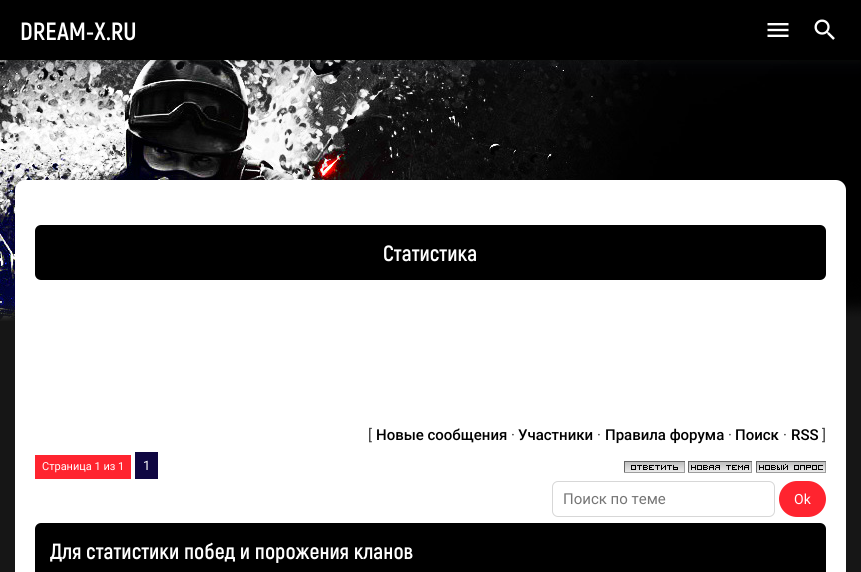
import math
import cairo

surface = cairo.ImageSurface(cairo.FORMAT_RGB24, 861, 572)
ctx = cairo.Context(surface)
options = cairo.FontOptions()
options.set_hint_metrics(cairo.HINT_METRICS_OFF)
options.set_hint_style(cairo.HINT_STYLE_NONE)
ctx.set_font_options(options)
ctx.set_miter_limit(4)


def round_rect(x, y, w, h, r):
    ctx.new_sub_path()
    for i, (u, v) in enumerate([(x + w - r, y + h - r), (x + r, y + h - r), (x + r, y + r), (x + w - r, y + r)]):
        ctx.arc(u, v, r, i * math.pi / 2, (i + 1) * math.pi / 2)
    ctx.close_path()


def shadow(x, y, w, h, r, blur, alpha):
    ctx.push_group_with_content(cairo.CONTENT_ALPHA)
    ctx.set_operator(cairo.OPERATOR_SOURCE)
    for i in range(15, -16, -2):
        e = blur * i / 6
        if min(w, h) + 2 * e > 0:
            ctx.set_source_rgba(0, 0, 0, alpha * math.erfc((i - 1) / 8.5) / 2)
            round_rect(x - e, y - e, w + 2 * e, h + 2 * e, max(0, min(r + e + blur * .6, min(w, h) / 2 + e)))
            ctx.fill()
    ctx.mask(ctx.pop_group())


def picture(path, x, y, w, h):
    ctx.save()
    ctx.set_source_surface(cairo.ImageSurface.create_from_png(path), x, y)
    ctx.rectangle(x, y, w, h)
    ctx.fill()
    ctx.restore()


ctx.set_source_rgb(0.086, 0.086, 0.086)
ctx.paint()
picture("img1.png", 0, 60, 861, 261)
ctx.set_source_rgb(0.18, 0.243, 0.424)
shadow(0, 5, 861, 60, 0, 7.5, 0.1)
ctx.set_source_rgb(0, 0, 0)
ctx.rectangle(0, 0, 861, 60)
ctx.fill()
ctx.save()
ctx.rectangle(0, 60, 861, 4)
ctx.clip()
ctx.set_source_rgb(0.188, 0.145, 0)
shadow(0, 2, 861, 60, 0, 2.5, 0.1)
ctx.restore()
ctx.select_font_face("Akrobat", cairo.FONT_SLANT_NORMAL, cairo.FONT_WEIGHT_BOLD)
ctx.set_font_size(25)
ctx.set_source_rgb(1, 1, 1)
ctx.move_to(20, 40)
ctx.show_text("DREAM-X.RU")
picture("img2.png", 767, 23, 22, 14)
picture("img3.png", 814, 19, 21, 21)
round_rect(15, 180, 831, 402, 10)
ctx.fill()
ctx.set_source_rgb(0, 0, 0)
round_rect(35, 225, 791, 55, 6)
ctx.fill()
ctx.set_font_size(22)
ctx.set_source_rgb(1, 1, 1)
ctx.move_to(383, 261)
ctx.show_text("Статистика")
ctx.select_font_face("Roboto")
ctx.set_font_size(15)
ctx.set_source_rgb(0.235, 0.235, 0.235)
ctx.move_to(368, 440)
ctx.show_text("[")
ctx.select_font_face("Roboto Medium")
ctx.set_source_rgb(0, 0, 0)
ctx.move_to(376, 440)
ctx.show_text("Новые сообщения")
ctx.select_font_face("Roboto")
ctx.set_source_rgb(0.235, 0.235, 0.235)
ctx.move_to(511, 440)
ctx.show_text("·")
ctx.select_font_face("Roboto Medium")
ctx.set_source_rgb(0, 0, 0)
ctx.move_to(518, 440)
ctx.show_text("Участники")
ctx.select_font_face("Roboto")
ctx.set_source_rgb(0.235, 0.235, 0.235)
ctx.move_to(597, 440)
ctx.show_text("·")
ctx.select_font_face("Roboto Medium")
ctx.set_source_rgb(0, 0, 0)
ctx.move_to(605, 440)
ctx.show_text("Правила форума")
ctx.select_font_face("Roboto")
ctx.set_source_rgb(0.235, 0.235, 0.235)
ctx.move_to(728, 440)
ctx.show_text("·")
ctx.select_font_face("Roboto Medium")
ctx.set_source_rgb(0, 0, 0)
ctx.move_to(735, 440)
ctx.show_text("Поиск")
ctx.select_font_face("Roboto")
ctx.set_source_rgb(0.235, 0.235, 0.235)
ctx.move_to(783, 440)
ctx.show_text("·")
ctx.select_font_face("Roboto Medium")
ctx.set_source_rgb(0, 0, 0)
ctx.move_to(791, 440)
ctx.show_text("RSS")
ctx.select_font_face("Roboto")
ctx.set_source_rgb(0.235, 0.235, 0.235)
ctx.move_to(822, 440)
ctx.show_text("]")
ctx.set_source_rgb(1, 0.141, 0.184)
ctx.rectangle(35, 455, 96, 24)
ctx.fill()
ctx.set_font_size(11)
ctx.set_source_rgb(1, 1, 1)
ctx.move_to(42, 470)
ctx.show_text("Страница 1 из 1")
ctx.set_source_rgb(0.059, 0.031, 0.259)
ctx.rectangle(135, 452, 23, 27)
ctx.fill()
ctx.set_font_size(13)
ctx.set_source_rgb(1, 1, 1)
ctx.move_to(143, 470)
ctx.show_text("1")
picture("img4.png", 624, 461, 61, 12)
picture("img5.png", 688, 461, 64, 12)
picture("img6.png", 756, 461, 70, 12)
round_rect(552.5, 481.5, 222, 35, 5.5)
ctx.set_source_rgb(0.843, 0.843, 0.843)
ctx.set_line_width(1)
ctx.stroke()
ctx.set_font_size(15)
ctx.set_source_rgb(0.459, 0.459, 0.459)
ctx.move_to(563, 504)
ctx.show_text("Поиск по теме")
ctx.set_source_rgb(1, 0.141, 0.184)
round_rect(779, 481, 47, 36, 18)
ctx.fill()
ctx.set_font_size(14)
ctx.set_source_rgb(1, 1, 1)
ctx.move_to(794, 504)
ctx.show_text("Ok")
ctx.set_source_rgb(0, 0, 0)
round_rect(35, 523, 791, 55, 6)
ctx.fill()
ctx.select_font_face("Akrobat", cairo.FONT_SLANT_NORMAL, cairo.FONT_WEIGHT_BOLD)
ctx.set_font_size(22)
ctx.set_source_rgb(1, 1, 1)
ctx.move_to(50, 559)
ctx.show_text("Для статистики побед и порожения кланов")
surface.write_to_png("page.png")
